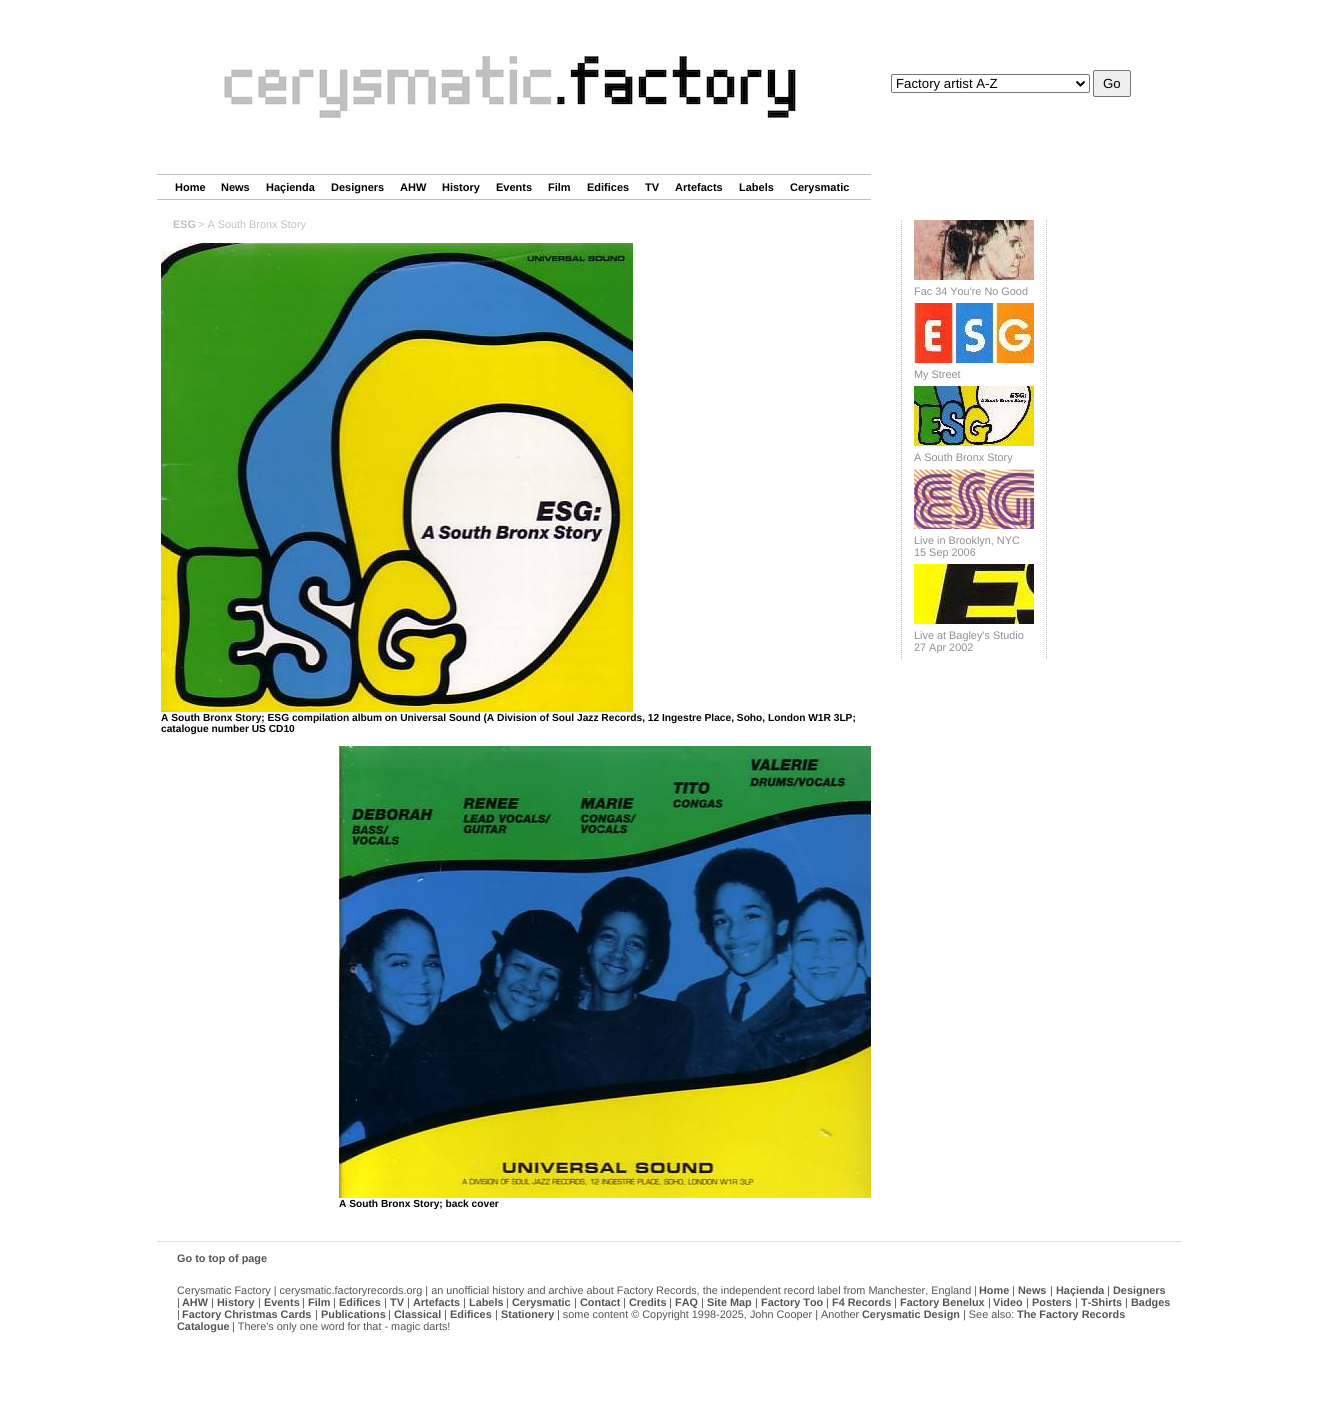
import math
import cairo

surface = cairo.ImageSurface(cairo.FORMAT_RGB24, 1337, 1421)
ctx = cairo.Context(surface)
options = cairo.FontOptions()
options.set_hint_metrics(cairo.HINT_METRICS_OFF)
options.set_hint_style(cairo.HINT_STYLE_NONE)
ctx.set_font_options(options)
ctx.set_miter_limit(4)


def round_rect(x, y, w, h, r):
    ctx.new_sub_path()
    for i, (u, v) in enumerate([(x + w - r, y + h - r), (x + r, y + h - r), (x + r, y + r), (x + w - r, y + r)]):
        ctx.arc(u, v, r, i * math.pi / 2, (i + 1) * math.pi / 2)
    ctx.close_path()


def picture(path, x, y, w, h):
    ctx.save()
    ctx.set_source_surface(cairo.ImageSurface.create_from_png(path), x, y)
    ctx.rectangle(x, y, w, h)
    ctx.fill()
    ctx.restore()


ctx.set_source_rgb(1, 1, 1)
ctx.paint()
picture("img1.png", 222, 53, 576, 68)
round_rect(891.5, 74.5, 198, 18, 1.5)
ctx.set_source_rgb(0.463, 0.463, 0.463)
ctx.set_line_width(1)
ctx.stroke()
ctx.new_path()
ctx.move_to(1076.5, 81.5)
ctx.line_to(1080.5, 85.5)
ctx.line_to(1084.5, 81.5)
ctx.set_source_rgb(0, 0, 0)
ctx.set_line_width(2)
ctx.stroke()
ctx.select_font_face("Liberation Sans")
ctx.set_font_size(13.25)
ctx.move_to(896, 88)
ctx.show_text("Factory artist A-Z")
ctx.set_source_rgb(0.937, 0.937, 0.937)
round_rect(1093.5, 70.5, 37, 26, 1.5)
ctx.fill_preserve()
ctx.set_source_rgb(0.463, 0.463, 0.463)
ctx.set_line_width(1)
ctx.stroke()
ctx.set_source_rgb(0, 0, 0)
ctx.move_to(1103, 88)
ctx.show_text("Go")
ctx.set_source_rgb(0.753, 0.753, 0.753)
ctx.rectangle(157, 174, 714, 1)
ctx.fill()
ctx.rectangle(157, 199, 714, 1)
ctx.fill()
ctx.select_font_face("Liberation Sans", cairo.FONT_SLANT_NORMAL, cairo.FONT_WEIGHT_BOLD)
ctx.set_font_size(11)
ctx.set_source_rgb(0, 0, 0)
ctx.move_to(175, 191)
ctx.show_text("Home")
ctx.move_to(221, 191)
ctx.show_text("News")
ctx.move_to(266, 191)
ctx.show_text("Haçienda")
ctx.move_to(331, 191)
ctx.show_text("Designers")
ctx.move_to(400, 191)
ctx.show_text("AHW")
ctx.move_to(442, 191)
ctx.show_text("History")
ctx.move_to(496, 191)
ctx.show_text("Events")
ctx.move_to(548, 191)
ctx.show_text("Film")
ctx.move_to(587, 191)
ctx.show_text("Edifices")
ctx.move_to(645, 191)
ctx.show_text("TV")
ctx.move_to(675, 191)
ctx.show_text("Artefacts")
ctx.move_to(739, 191)
ctx.show_text("Labels")
ctx.move_to(790, 191)
ctx.show_text("Cerysmatic")
ctx.set_font_size(10.88)
ctx.set_source_rgb(0.753, 0.753, 0.753)
ctx.move_to(173, 228)
ctx.show_text("ESG")
ctx.select_font_face("Liberation Sans")
ctx.move_to(198, 228)
ctx.show_text("> A South Bronx Story")
picture("img2.png", 161, 243, 472, 469)
ctx.select_font_face("Liberation Sans", cairo.FONT_SLANT_NORMAL, cairo.FONT_WEIGHT_BOLD)
ctx.set_font_size(10.2)
ctx.set_source_rgb(0, 0, 0)
ctx.move_to(161, 721)
ctx.show_text("A South Bronx Story; ESG compilation album on Universal Sound (A Division of Soul Jazz Records, 12 Ingestre Place, Soho, London W1R 3LP;")
ctx.move_to(161, 732)
ctx.show_text("catalogue number US CD10")
picture("img3.png", 339, 746, 532, 452)
ctx.move_to(339, 1207)
ctx.show_text("A South Bronx Story; back cover")
ctx.new_path()
ctx.move_to(1046.5, 220)
ctx.line_to(1046.5, 659)
ctx.set_source_rgb(0.753, 0.753, 0.753)
ctx.set_dash([1, 1])
ctx.stroke()
ctx.new_path()
ctx.move_to(901.5, 220)
ctx.line_to(901.5, 659)
ctx.stroke()
picture("img4.png", 914, 220, 120, 60)
ctx.select_font_face("Liberation Sans")
ctx.set_font_size(10.88)
ctx.set_source_rgb(0.565, 0.565, 0.565)
ctx.move_to(914, 295)
ctx.show_text("Fac 34 You're No Good")
picture("img5.png", 914, 303, 120, 60)
ctx.move_to(914, 378)
ctx.show_text("My Street")
picture("img6.png", 914, 386, 120, 60)
ctx.move_to(914, 461)
ctx.show_text("A South Bronx Story")
picture("img7.png", 914, 469, 120, 60)
ctx.move_to(914, 544)
ctx.show_text("Live in Brooklyn, NYC")
ctx.move_to(914, 556)
ctx.show_text("15 Sep 2006")
picture("img8.png", 914, 564, 120, 60)
ctx.move_to(914, 639)
ctx.show_text("Live at Bagley's Studio")
ctx.move_to(914, 651)
ctx.show_text("27 Apr 2002")
ctx.set_source_rgb(0.867, 0.867, 0.867)
ctx.rectangle(157, 1241, 1024, 1)
ctx.fill()
ctx.select_font_face("Liberation Sans", cairo.FONT_SLANT_NORMAL, cairo.FONT_WEIGHT_BOLD)
ctx.set_source_rgb(0.333, 0.329, 0.349)
ctx.move_to(177, 1262)
ctx.show_text("Go to top of page")
ctx.select_font_face("Liberation Sans")
ctx.move_to(177, 1294)
ctx.show_text("Cerysmatic Factory | cerysmatic.factoryrecords.org | an unofficial history and archive about Factory Records, the independent record label from Manchester, England |")
ctx.select_font_face("Liberation Sans", cairo.FONT_SLANT_NORMAL, cairo.FONT_WEIGHT_BOLD)
ctx.move_to(979, 1294)
ctx.show_text("Home")
ctx.select_font_face("Liberation Sans")
ctx.move_to(1012, 1294)
ctx.show_text("|")
ctx.select_font_face("Liberation Sans", cairo.FONT_SLANT_NORMAL, cairo.FONT_WEIGHT_BOLD)
ctx.move_to(1018, 1294)
ctx.show_text("News")
ctx.select_font_face("Liberation Sans")
ctx.move_to(1050, 1294)
ctx.show_text("|")
ctx.select_font_face("Liberation Sans", cairo.FONT_SLANT_NORMAL, cairo.FONT_WEIGHT_BOLD)
ctx.move_to(1056, 1294)
ctx.show_text("Haçienda")
ctx.select_font_face("Liberation Sans")
ctx.move_to(1107, 1294)
ctx.show_text("|")
ctx.select_font_face("Liberation Sans", cairo.FONT_SLANT_NORMAL, cairo.FONT_WEIGHT_BOLD)
ctx.move_to(1113, 1294)
ctx.show_text("Designers")
ctx.select_font_face("Liberation Sans")
ctx.move_to(177, 1306)
ctx.show_text("|")
ctx.select_font_face("Liberation Sans", cairo.FONT_SLANT_NORMAL, cairo.FONT_WEIGHT_BOLD)
ctx.move_to(182, 1306)
ctx.show_text("AHW")
ctx.select_font_face("Liberation Sans")
ctx.move_to(211, 1306)
ctx.show_text("|")
ctx.select_font_face("Liberation Sans", cairo.FONT_SLANT_NORMAL, cairo.FONT_WEIGHT_BOLD)
ctx.move_to(217, 1306)
ctx.show_text("History")
ctx.select_font_face("Liberation Sans")
ctx.move_to(258, 1306)
ctx.show_text("|")
ctx.select_font_face("Liberation Sans", cairo.FONT_SLANT_NORMAL, cairo.FONT_WEIGHT_BOLD)
ctx.move_to(264, 1306)
ctx.show_text("Events")
ctx.select_font_face("Liberation Sans")
ctx.move_to(302, 1306)
ctx.show_text("|")
ctx.select_font_face("Liberation Sans", cairo.FONT_SLANT_NORMAL, cairo.FONT_WEIGHT_BOLD)
ctx.move_to(308, 1306)
ctx.show_text("Film")
ctx.select_font_face("Liberation Sans")
ctx.move_to(333, 1306)
ctx.show_text("|")
ctx.select_font_face("Liberation Sans", cairo.FONT_SLANT_NORMAL, cairo.FONT_WEIGHT_BOLD)
ctx.move_to(339, 1306)
ctx.show_text("Edifices")
ctx.select_font_face("Liberation Sans")
ctx.move_to(384, 1306)
ctx.show_text("|")
ctx.select_font_face("Liberation Sans", cairo.FONT_SLANT_NORMAL, cairo.FONT_WEIGHT_BOLD)
ctx.move_to(390, 1306)
ctx.show_text("TV")
ctx.select_font_face("Liberation Sans")
ctx.move_to(407, 1306)
ctx.show_text("|")
ctx.select_font_face("Liberation Sans", cairo.FONT_SLANT_NORMAL, cairo.FONT_WEIGHT_BOLD)
ctx.move_to(413, 1306)
ctx.show_text("Artefacts")
ctx.select_font_face("Liberation Sans")
ctx.move_to(463, 1306)
ctx.show_text("|")
ctx.select_font_face("Liberation Sans", cairo.FONT_SLANT_NORMAL, cairo.FONT_WEIGHT_BOLD)
ctx.move_to(469, 1306)
ctx.show_text("Labels")
ctx.select_font_face("Liberation Sans")
ctx.move_to(506, 1306)
ctx.show_text("|")
ctx.select_font_face("Liberation Sans", cairo.FONT_SLANT_NORMAL, cairo.FONT_WEIGHT_BOLD)
ctx.move_to(512, 1306)
ctx.show_text("Cerysmatic")
ctx.select_font_face("Liberation Sans")
ctx.move_to(574, 1306)
ctx.show_text("|")
ctx.select_font_face("Liberation Sans", cairo.FONT_SLANT_NORMAL, cairo.FONT_WEIGHT_BOLD)
ctx.move_to(580, 1306)
ctx.show_text("Contact")
ctx.select_font_face("Liberation Sans")
ctx.move_to(623, 1306)
ctx.show_text("|")
ctx.select_font_face("Liberation Sans", cairo.FONT_SLANT_NORMAL, cairo.FONT_WEIGHT_BOLD)
ctx.move_to(629, 1306)
ctx.show_text("Credits")
ctx.select_font_face("Liberation Sans")
ctx.move_to(669, 1306)
ctx.show_text("|")
ctx.select_font_face("Liberation Sans", cairo.FONT_SLANT_NORMAL, cairo.FONT_WEIGHT_BOLD)
ctx.move_to(675, 1306)
ctx.show_text("FAQ")
ctx.select_font_face("Liberation Sans")
ctx.move_to(701, 1306)
ctx.show_text("|")
ctx.select_font_face("Liberation Sans", cairo.FONT_SLANT_NORMAL, cairo.FONT_WEIGHT_BOLD)
ctx.move_to(707, 1306)
ctx.show_text("Site Map")
ctx.select_font_face("Liberation Sans")
ctx.move_to(755, 1306)
ctx.show_text("|")
ctx.select_font_face("Liberation Sans", cairo.FONT_SLANT_NORMAL, cairo.FONT_WEIGHT_BOLD)
ctx.move_to(761, 1306)
ctx.show_text("Factory Too")
ctx.select_font_face("Liberation Sans")
ctx.move_to(826, 1306)
ctx.show_text("|")
ctx.select_font_face("Liberation Sans", cairo.FONT_SLANT_NORMAL, cairo.FONT_WEIGHT_BOLD)
ctx.move_to(832, 1306)
ctx.show_text("F4 Records")
ctx.select_font_face("Liberation Sans")
ctx.move_to(894, 1306)
ctx.show_text("|")
ctx.select_font_face("Liberation Sans", cairo.FONT_SLANT_NORMAL, cairo.FONT_WEIGHT_BOLD)
ctx.move_to(900, 1306)
ctx.show_text("Factory Benelux")
ctx.select_font_face("Liberation Sans")
ctx.move_to(988, 1306)
ctx.show_text("|")
ctx.select_font_face("Liberation Sans", cairo.FONT_SLANT_NORMAL, cairo.FONT_WEIGHT_BOLD)
ctx.move_to(993, 1306)
ctx.show_text("Video")
ctx.select_font_face("Liberation Sans")
ctx.move_to(1026, 1306)
ctx.show_text("|")
ctx.select_font_face("Liberation Sans", cairo.FONT_SLANT_NORMAL, cairo.FONT_WEIGHT_BOLD)
ctx.move_to(1032, 1306)
ctx.show_text("Posters")
ctx.select_font_face("Liberation Sans")
ctx.move_to(1075, 1306)
ctx.show_text("|")
ctx.select_font_face("Liberation Sans", cairo.FONT_SLANT_NORMAL, cairo.FONT_WEIGHT_BOLD)
ctx.move_to(1081, 1306)
ctx.show_text("T-Shirts")
ctx.select_font_face("Liberation Sans")
ctx.move_to(1125, 1306)
ctx.show_text("|")
ctx.select_font_face("Liberation Sans", cairo.FONT_SLANT_NORMAL, cairo.FONT_WEIGHT_BOLD)
ctx.move_to(1131, 1306)
ctx.show_text("Badges")
ctx.select_font_face("Liberation Sans")
ctx.move_to(177, 1318)
ctx.show_text("|")
ctx.select_font_face("Liberation Sans", cairo.FONT_SLANT_NORMAL, cairo.FONT_WEIGHT_BOLD)
ctx.move_to(182, 1318)
ctx.show_text("Factory Christmas Cards")
ctx.select_font_face("Liberation Sans")
ctx.move_to(315, 1318)
ctx.show_text("|")
ctx.select_font_face("Liberation Sans", cairo.FONT_SLANT_NORMAL, cairo.FONT_WEIGHT_BOLD)
ctx.move_to(321, 1318)
ctx.show_text("Publications")
ctx.select_font_face("Liberation Sans")
ctx.move_to(388, 1318)
ctx.show_text("|")
ctx.select_font_face("Liberation Sans", cairo.FONT_SLANT_NORMAL, cairo.FONT_WEIGHT_BOLD)
ctx.move_to(394, 1318)
ctx.show_text("Classical")
ctx.select_font_face("Liberation Sans")
ctx.move_to(444, 1318)
ctx.show_text("|")
ctx.select_font_face("Liberation Sans", cairo.FONT_SLANT_NORMAL, cairo.FONT_WEIGHT_BOLD)
ctx.move_to(450, 1318)
ctx.show_text("Edifices")
ctx.select_font_face("Liberation Sans")
ctx.move_to(495, 1318)
ctx.show_text("|")
ctx.select_font_face("Liberation Sans", cairo.FONT_SLANT_NORMAL, cairo.FONT_WEIGHT_BOLD)
ctx.move_to(501, 1318)
ctx.show_text("Stationery")
ctx.select_font_face("Liberation Sans")
ctx.move_to(557, 1318)
ctx.show_text("| some content © Copyright 1998-2025, John Cooper | Another")
ctx.select_font_face("Liberation Sans", cairo.FONT_SLANT_NORMAL, cairo.FONT_WEIGHT_BOLD)
ctx.move_to(862, 1318)
ctx.show_text("Cerysmatic Design")
ctx.select_font_face("Liberation Sans")
ctx.move_to(963, 1318)
ctx.show_text("| See also:")
ctx.select_font_face("Liberation Sans", cairo.FONT_SLANT_NORMAL, cairo.FONT_WEIGHT_BOLD)
ctx.move_to(1017, 1318)
ctx.show_text("The Factory Records")
ctx.move_to(177, 1330)
ctx.show_text("Catalogue")
ctx.select_font_face("Liberation Sans")
ctx.move_to(232, 1330)
ctx.show_text("| There's only one word for that - magic darts!")
surface.write_to_png("page.png")
